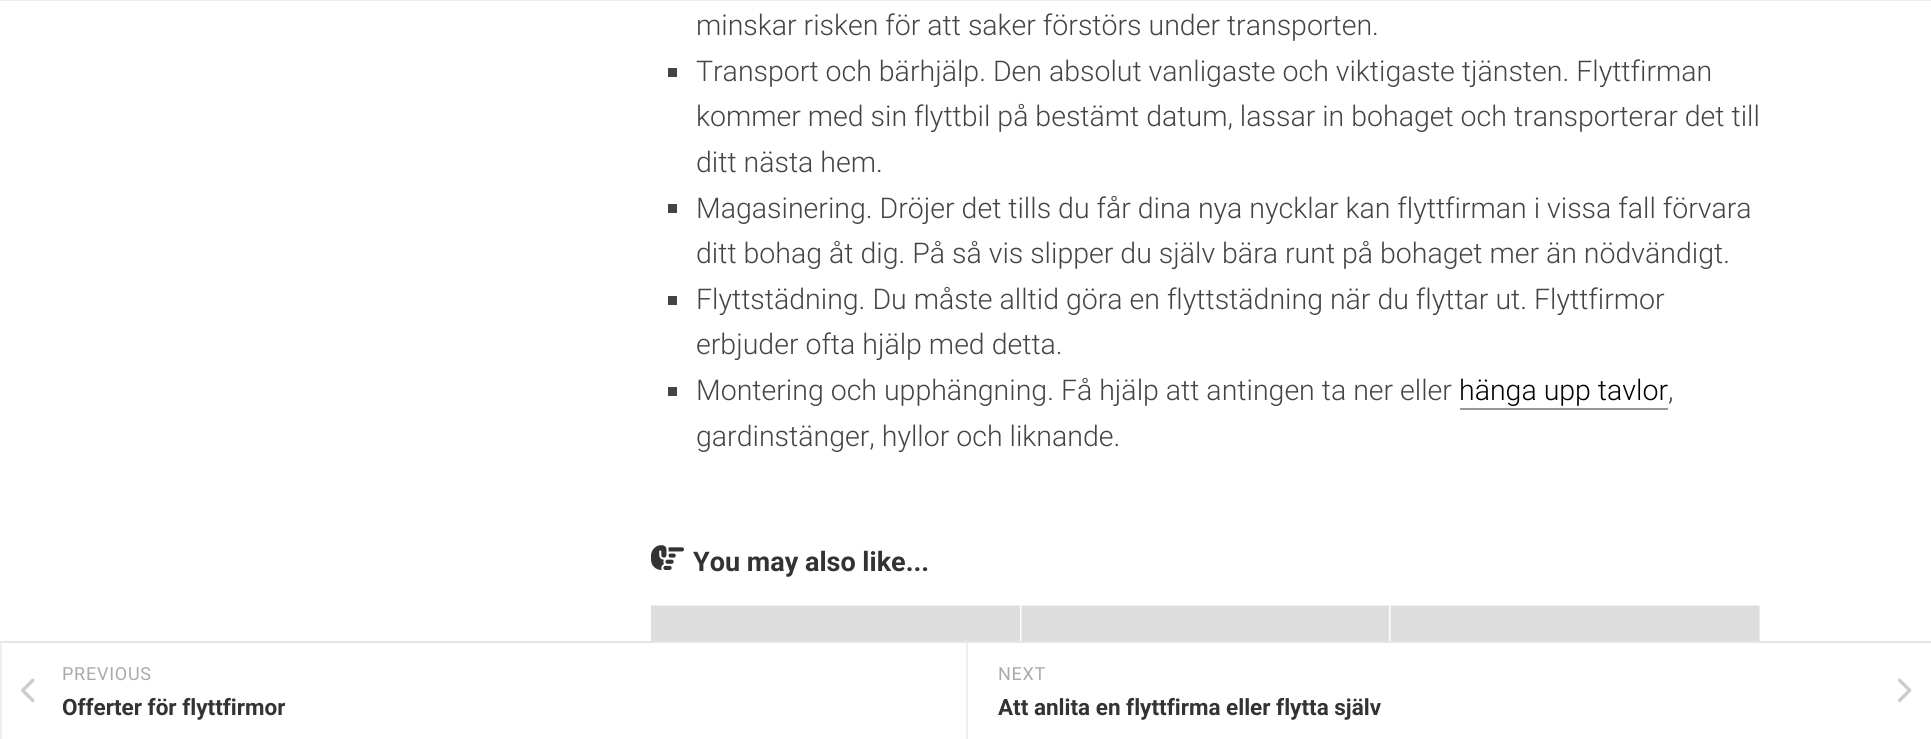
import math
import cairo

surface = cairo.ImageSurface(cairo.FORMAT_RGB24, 1931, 739)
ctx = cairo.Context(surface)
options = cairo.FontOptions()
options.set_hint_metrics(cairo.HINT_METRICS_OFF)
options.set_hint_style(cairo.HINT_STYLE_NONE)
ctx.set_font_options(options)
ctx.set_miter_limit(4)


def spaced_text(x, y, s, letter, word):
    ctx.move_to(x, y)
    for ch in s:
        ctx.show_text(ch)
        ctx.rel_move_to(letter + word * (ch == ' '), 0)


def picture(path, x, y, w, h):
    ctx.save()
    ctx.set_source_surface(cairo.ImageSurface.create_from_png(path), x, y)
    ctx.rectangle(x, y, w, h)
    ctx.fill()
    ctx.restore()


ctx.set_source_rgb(1, 1, 1)
ctx.paint()
ctx.set_source_rgb(0.933, 0.933, 0.933)
ctx.rectangle(0, 0, 1931, 1)
ctx.fill()
ctx.select_font_face("Roboto Light")
ctx.set_font_size(28.5)
ctx.set_source_rgb(0.267, 0.267, 0.267)
ctx.move_to(696, 35)
ctx.show_text("minskar risken för att saker förstörs under transporten.")
ctx.rectangle(668, 68, 9, 9)
ctx.fill()
ctx.move_to(696, 81)
ctx.show_text("Transport och bärhjälp. Den absolut vanligaste och viktigaste tjänsten. Flyttfirman")
ctx.move_to(696, 126)
ctx.show_text("kommer med sin flyttbil på bestämt datum, lassar in bohaget och transporterar det till")
ctx.move_to(696, 172)
ctx.show_text("ditt nästa hem.")
ctx.rectangle(668, 204, 9, 9)
ctx.fill()
ctx.move_to(696, 218)
ctx.show_text("Magasinering. Dröjer det tills du får dina nya nycklar kan flyttfirman i vissa fall förvara")
ctx.move_to(696, 263)
ctx.show_text("ditt bohag åt dig. På så vis slipper du själv bära runt på bohaget mer än nödvändigt.")
ctx.rectangle(668, 296, 9, 9)
ctx.fill()
ctx.move_to(696, 309)
ctx.show_text("Flyttstädning. Du måste alltid göra en flyttstädning när du flyttar ut. Flyttfirmor")
ctx.move_to(696, 354)
ctx.show_text("erbjuder ofta hjälp med detta.")
ctx.rectangle(668, 387, 9, 9)
ctx.fill()
ctx.move_to(696, 400)
ctx.show_text("Montering och upphängning. Få hjälp att antingen ta ner eller")
ctx.set_source_rgb(0, 0, 0)
ctx.move_to(1459, 400)
ctx.show_text("hänga upp tavlor")
ctx.set_source_rgb(0.6, 0.6, 0.6)
ctx.rectangle(1460, 408, 208, 2)
ctx.fill()
ctx.set_source_rgb(0.267, 0.267, 0.267)
ctx.move_to(1668, 400)
ctx.show_text(",")
ctx.move_to(696, 446)
ctx.show_text("gardinstänger, hyllor och liknande.")
picture("img1.png", 651, 545, 33, 25)
ctx.select_font_face("Roboto", cairo.FONT_SLANT_NORMAL, cairo.FONT_WEIGHT_BOLD)
ctx.set_font_size(27)
ctx.set_source_rgb(0.2, 0.2, 0.2)
ctx.move_to(693, 571)
ctx.show_text("You may also like...")
picture("img2.png", 651, 605, 369, 36)
picture("img3.png", 1021, 605, 368, 36)
picture("img4.png", 1390, 605, 370, 36)
ctx.set_source_rgb(0.898, 0.898, 0.898)
ctx.rectangle(0, 641, 1931, 2)
ctx.fill()
ctx.set_source_rgb(0.933, 0.933, 0.933)
ctx.rectangle(0, 642, 2, 97)
ctx.fill()
ctx.select_font_face("Roboto")
ctx.set_font_size(18)
ctx.set_source_rgb(0.667, 0.667, 0.667)
spaced_text(62, 680, "PREVIOUS", 0.75, 0)
picture("img5.png", 21, 678, 14, 25)
ctx.select_font_face("Roboto", cairo.FONT_SLANT_NORMAL, cairo.FONT_WEIGHT_BOLD)
ctx.set_font_size(22.5)
ctx.set_source_rgb(0.2, 0.2, 0.2)
ctx.move_to(62, 715)
ctx.show_text("Offerter för flyttfirmor")
ctx.set_source_rgb(0.933, 0.933, 0.933)
ctx.rectangle(966, 642, 2, 97)
ctx.fill()
ctx.select_font_face("Roboto")
ctx.set_font_size(18)
ctx.set_source_rgb(0.667, 0.667, 0.667)
spaced_text(998, 680, "NEXT", 0.75, 0)
picture("img6.png", 1898, 678, 14, 25)
ctx.select_font_face("Roboto", cairo.FONT_SLANT_NORMAL, cairo.FONT_WEIGHT_BOLD)
ctx.set_font_size(22.5)
ctx.set_source_rgb(0.2, 0.2, 0.2)
ctx.move_to(998, 715)
ctx.show_text("Att anlita en flyttfirma eller flytta själv")
surface.write_to_png("page.png")
